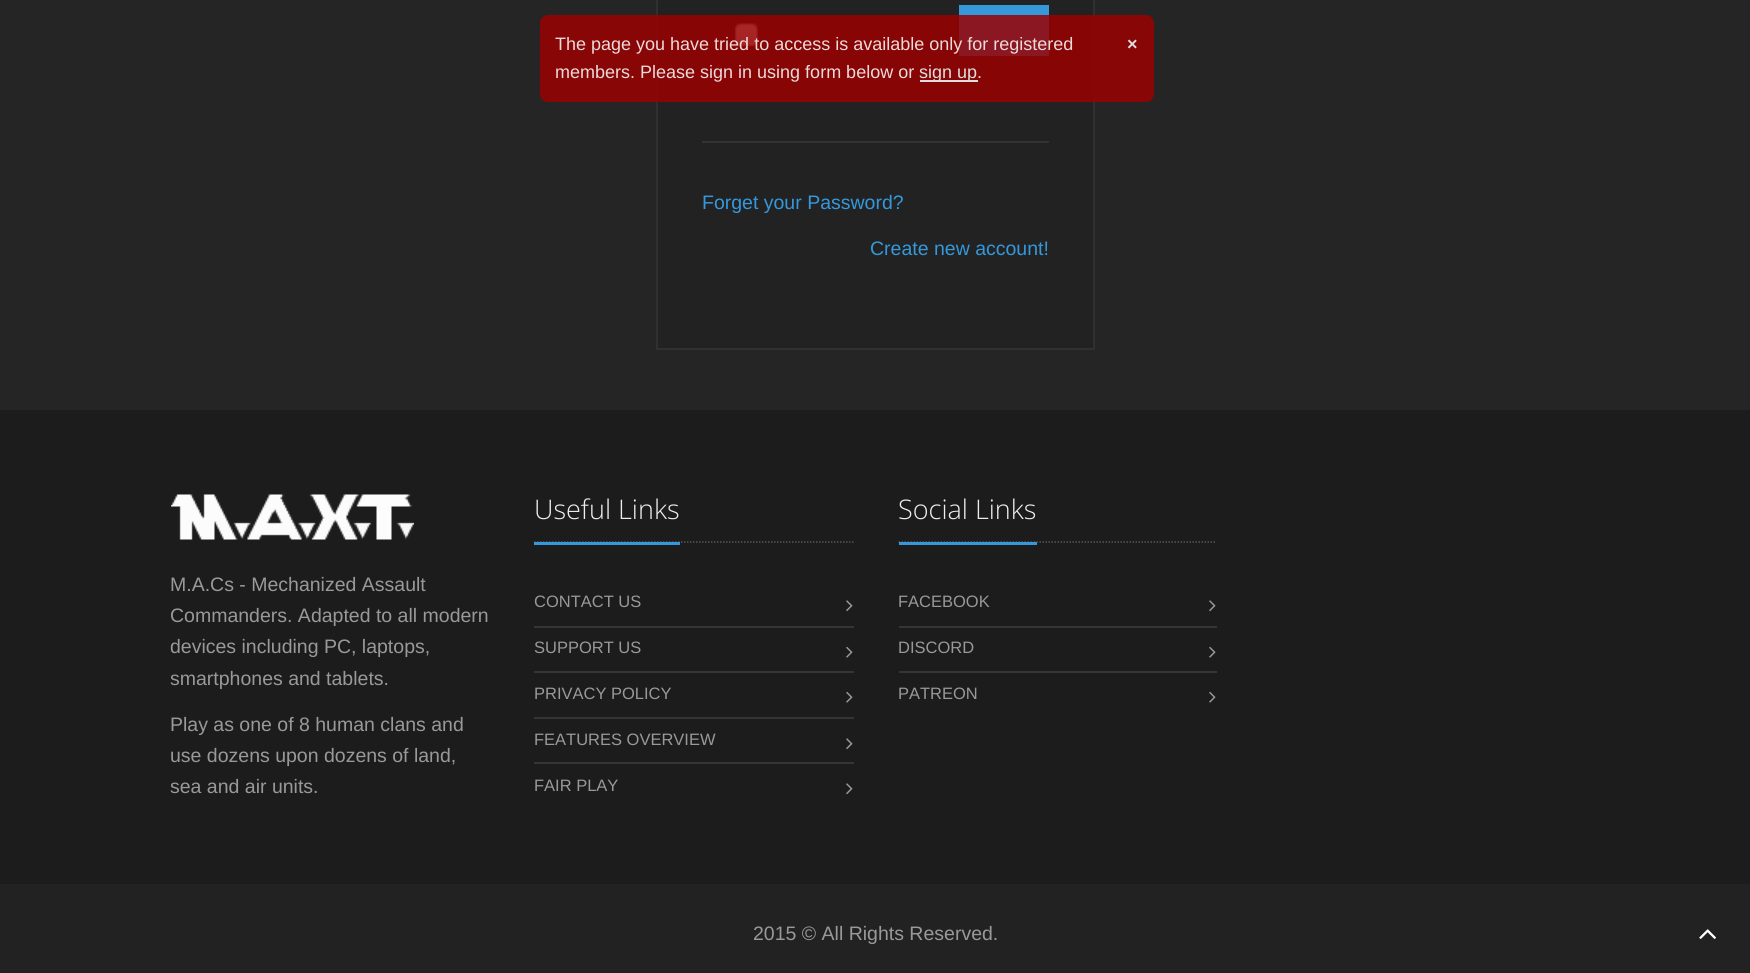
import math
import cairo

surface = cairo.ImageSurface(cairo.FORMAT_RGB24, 1750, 973)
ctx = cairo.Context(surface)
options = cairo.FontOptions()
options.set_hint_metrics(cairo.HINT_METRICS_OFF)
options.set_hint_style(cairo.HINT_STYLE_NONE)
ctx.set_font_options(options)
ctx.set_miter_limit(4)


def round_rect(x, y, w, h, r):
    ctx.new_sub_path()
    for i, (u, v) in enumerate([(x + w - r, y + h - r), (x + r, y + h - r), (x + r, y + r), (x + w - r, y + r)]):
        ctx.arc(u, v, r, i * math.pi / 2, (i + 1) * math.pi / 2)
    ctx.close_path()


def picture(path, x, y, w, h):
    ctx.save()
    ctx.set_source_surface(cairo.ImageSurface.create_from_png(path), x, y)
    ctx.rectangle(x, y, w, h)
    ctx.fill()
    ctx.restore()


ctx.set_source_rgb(0.145, 0.145, 0.145)
ctx.paint()
ctx.set_source_rgb(0.133, 0.133, 0.133)
ctx.rectangle(657, -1, 437, 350)
ctx.fill_preserve()
ctx.set_source_rgb(0.188, 0.188, 0.188)
ctx.stroke()
picture("img1.png", 734, 23, 25, 24)
ctx.set_source_rgb(0.204, 0.596, 0.859)
ctx.rectangle(959, 5, 90, 51)
ctx.fill()
ctx.set_source_rgba(0.6, 0, 0, 0.85)
round_rect(540, 15, 614, 87, 8)
ctx.fill()
ctx.select_font_face("Liberation Sans")
ctx.set_font_size(18)
ctx.set_source_rgb(0.929, 0.855, 0.855)
ctx.move_to(555, 50)
ctx.show_text("The page you have tried to access is available only for registered")
ctx.move_to(555, 78)
ctx.show_text("members. Please sign in using form below or")
ctx.set_source_rgb(0.871, 0.871, 0.871)
ctx.rectangle(920, 80, 58, 2)
ctx.fill()
ctx.move_to(919, 78)
ctx.show_text("sign up.")
ctx.select_font_face("Liberation Sans", cairo.FONT_SLANT_NORMAL, cairo.FONT_WEIGHT_BOLD)
ctx.move_to(1127, 50)
ctx.show_text("×")
ctx.set_source_rgb(0.2, 0.2, 0.2)
ctx.rectangle(702, 141, 347, 2)
ctx.fill()
ctx.select_font_face("Liberation Sans")
ctx.set_font_size(19.5)
ctx.set_source_rgb(0.204, 0.596, 0.859)
ctx.move_to(702, 209)
ctx.show_text("Forget your Password?")
ctx.move_to(870, 255)
ctx.show_text("Сreate new account!")
ctx.set_source_rgb(0.11, 0.11, 0.11)
ctx.rectangle(0, 410, 1750, 474)
ctx.fill()
picture("img2.png", 171, 494, 243, 46)
ctx.set_source_rgb(0.6, 0.6, 0.6)
ctx.move_to(170, 591)
ctx.show_text("M.A.Cs - Mechanized Assault")
ctx.move_to(170, 622)
ctx.show_text("Commanders. Adapted to all modern")
ctx.move_to(170, 653)
ctx.show_text("devices including PC, laptops,")
ctx.move_to(170, 685)
ctx.show_text("smartphones and tablets.")
ctx.move_to(170, 731)
ctx.show_text("Play as one of 8 human clans and")
ctx.move_to(170, 762)
ctx.show_text("use dozens upon dozens of land,")
ctx.move_to(170, 793)
ctx.show_text("sea and air units.")
ctx.new_path()
ctx.move_to(534, 542)
ctx.line_to(853.5, 542)
ctx.set_source_rgb(0.333, 0.333, 0.333)
ctx.set_line_width(1.5)
ctx.set_dash([1.5, 1.5])
ctx.stroke()
ctx.set_source_rgb(0.204, 0.596, 0.859)
ctx.rectangle(534, 542, 146, 3)
ctx.fill()
ctx.select_font_face("Open Sans Light")
ctx.set_font_size(27)
ctx.set_source_rgb(0.933, 0.933, 0.933)
ctx.move_to(534, 519)
ctx.show_text("Useful Links")
ctx.select_font_face("Liberation Sans")
ctx.set_font_size(16.5)
ctx.set_source_rgb(0.6, 0.6, 0.6)
ctx.move_to(534, 607)
ctx.show_text("CONTACT US")
picture("img3.png", 846, 600, 7, 12)
ctx.set_source_rgb(0.208, 0.208, 0.208)
ctx.rectangle(534, 626, 320, 2)
ctx.fill()
ctx.set_source_rgb(0.6, 0.6, 0.6)
ctx.move_to(534, 653)
ctx.show_text("SUPPORT US")
picture("img4.png", 846, 646, 7, 12)
ctx.set_source_rgb(0.208, 0.208, 0.208)
ctx.rectangle(534, 671, 320, 2)
ctx.fill()
ctx.set_source_rgb(0.6, 0.6, 0.6)
ctx.move_to(534, 699)
ctx.show_text("PRIVACY POLICY")
picture("img4.png", 846, 691, 7, 12)
ctx.set_source_rgb(0.208, 0.208, 0.208)
ctx.rectangle(534, 717, 320, 2)
ctx.fill()
ctx.set_source_rgb(0.6, 0.6, 0.6)
ctx.move_to(534, 745)
ctx.show_text("FEATURES OVERVIEW")
picture("img3.png", 846, 738, 7, 12)
ctx.set_source_rgb(0.208, 0.208, 0.208)
ctx.rectangle(534, 762, 320, 2)
ctx.fill()
ctx.set_source_rgb(0.6, 0.6, 0.6)
ctx.move_to(534, 791)
ctx.show_text("FAIR PLAY")
picture("img3.png", 846, 783, 7, 12)
ctx.new_path()
ctx.move_to(898.5, 542)
ctx.line_to(1216.5, 542)
ctx.set_source_rgb(0.333, 0.333, 0.333)
ctx.stroke()
ctx.set_source_rgb(0.204, 0.596, 0.859)
ctx.rectangle(899, 542, 138, 3)
ctx.fill()
ctx.select_font_face("Open Sans Light")
ctx.set_font_size(27)
ctx.set_source_rgb(0.933, 0.933, 0.933)
ctx.move_to(898, 519)
ctx.show_text("Social Links")
ctx.select_font_face("Liberation Sans")
ctx.set_font_size(16.5)
ctx.set_source_rgb(0.6, 0.6, 0.6)
ctx.move_to(898, 607)
ctx.show_text("FACEBOOK")
picture("img3.png", 1209, 600, 7, 12)
ctx.set_source_rgb(0.208, 0.208, 0.208)
ctx.rectangle(899, 626, 318, 2)
ctx.fill()
ctx.set_source_rgb(0.6, 0.6, 0.6)
ctx.move_to(898, 653)
ctx.show_text("DISCORD")
picture("img4.png", 1209, 646, 7, 12)
ctx.set_source_rgb(0.208, 0.208, 0.208)
ctx.rectangle(899, 671, 318, 2)
ctx.fill()
ctx.set_source_rgb(0.6, 0.6, 0.6)
ctx.move_to(898, 699)
ctx.show_text("PATREON")
picture("img4.png", 1209, 691, 7, 12)
ctx.set_source_rgb(0.133, 0.133, 0.133)
ctx.rectangle(0, 884, 1750, 89)
ctx.fill()
ctx.set_font_size(19.5)
ctx.set_source_rgb(0.6, 0.6, 0.6)
ctx.move_to(753, 940)
ctx.show_text("2015 © All Rights Reserved.")
picture("img5.png", 1699, 929, 17, 10)
surface.write_to_png("page.png")
